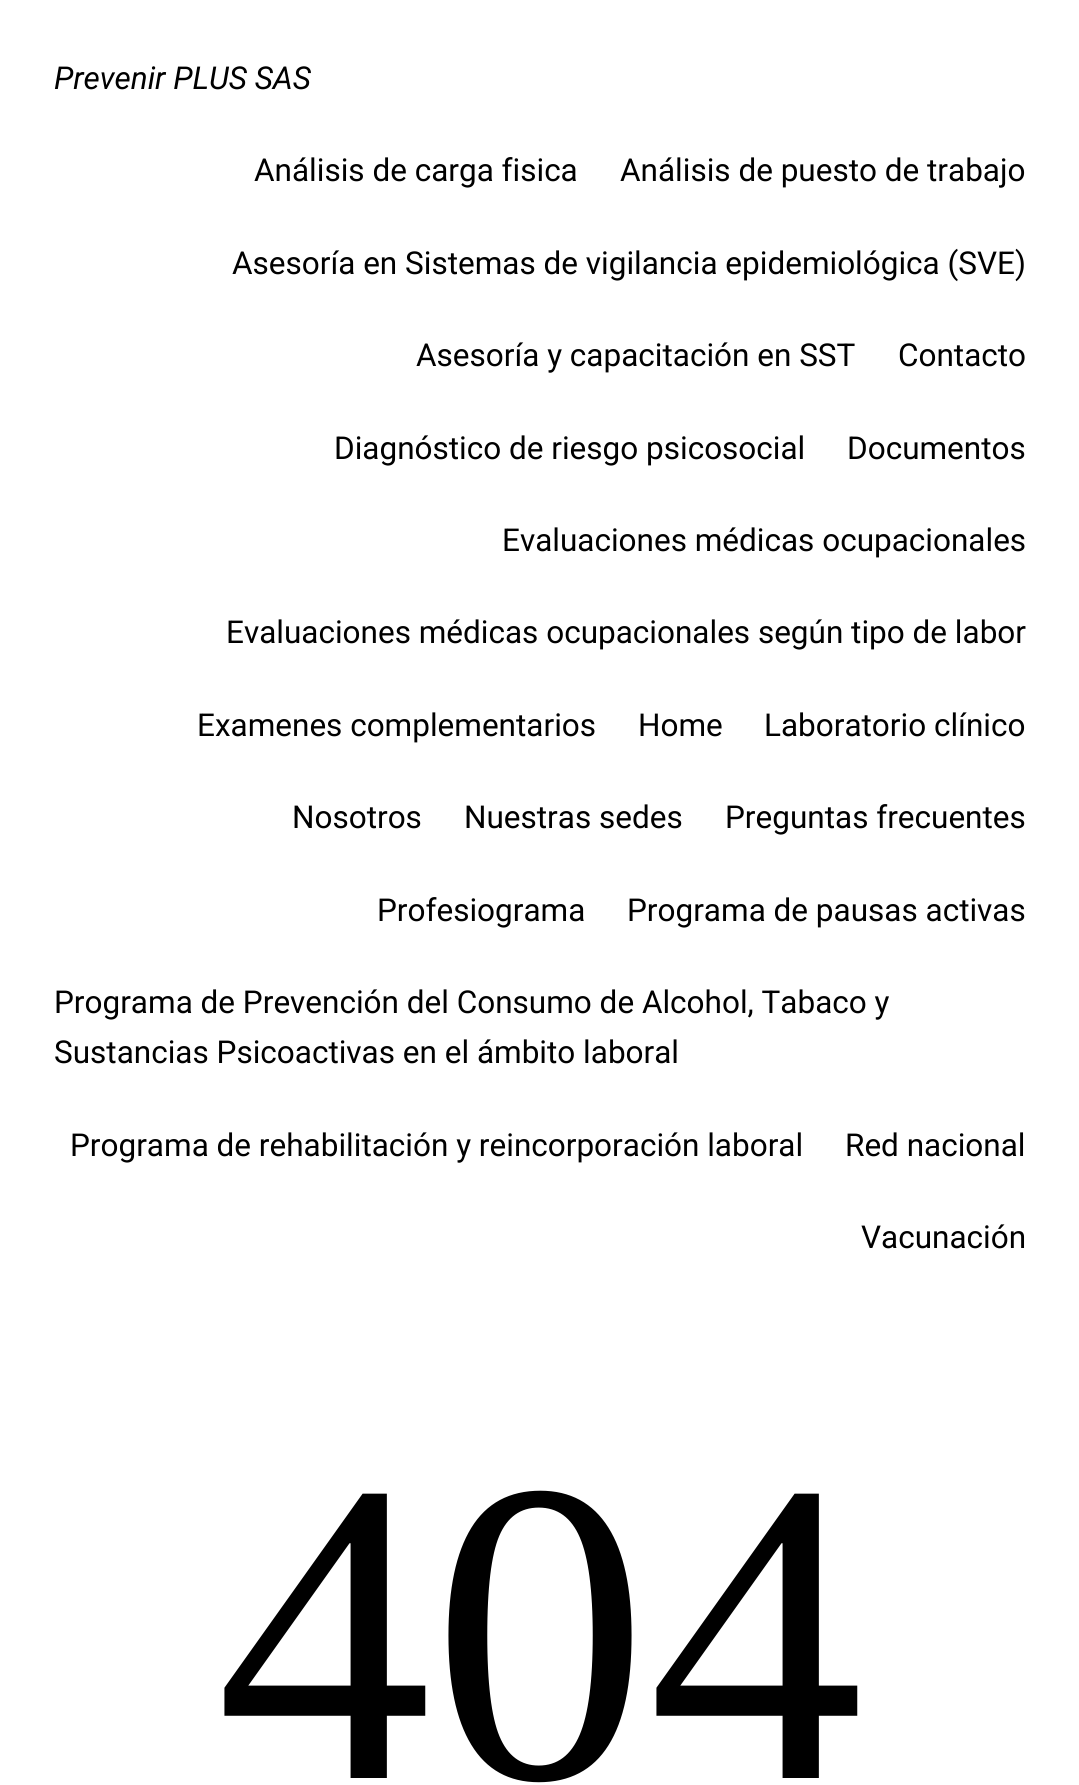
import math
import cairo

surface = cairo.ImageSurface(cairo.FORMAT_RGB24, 1079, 1785)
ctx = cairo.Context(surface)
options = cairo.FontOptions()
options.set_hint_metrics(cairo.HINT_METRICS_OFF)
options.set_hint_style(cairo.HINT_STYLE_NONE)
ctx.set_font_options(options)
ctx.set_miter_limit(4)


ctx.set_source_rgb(1, 1, 1)
ctx.paint()
ctx.select_font_face("Roboto", cairo.FONT_SLANT_ITALIC)
ctx.set_font_size(31.5)
ctx.set_source_rgb(0, 0, 0)
ctx.move_to(54, 89)
ctx.show_text("Prevenir PLUS SAS")
ctx.select_font_face("Roboto")
ctx.move_to(254, 181)
ctx.show_text("Análisis de carga fisica")
ctx.move_to(620, 181)
ctx.show_text("Análisis de puesto de trabajo")
ctx.move_to(232, 274)
ctx.show_text("Asesoría en Sistemas de vigilancia epidemiológica (SVE)")
ctx.move_to(416, 366)
ctx.show_text("Asesoría y capacitación en SST")
ctx.move_to(898, 366)
ctx.show_text("Contacto")
ctx.move_to(334, 459)
ctx.show_text("Diagnóstico de riesgo psicosocial")
ctx.move_to(847, 459)
ctx.show_text("Documentos")
ctx.move_to(502, 551)
ctx.show_text("Evaluaciones médicas ocupacionales")
ctx.move_to(226, 643)
ctx.show_text("Evaluaciones médicas ocupacionales según tipo de labor")
ctx.move_to(197, 736)
ctx.show_text("Examenes complementarios")
ctx.move_to(638, 736)
ctx.show_text("Home")
ctx.move_to(764, 736)
ctx.show_text("Laboratorio clínico")
ctx.move_to(292, 828)
ctx.show_text("Nosotros")
ctx.move_to(464, 828)
ctx.show_text("Nuestras sedes")
ctx.move_to(725, 828)
ctx.show_text("Preguntas frecuentes")
ctx.move_to(377, 921)
ctx.show_text("Profesiograma")
ctx.move_to(627, 921)
ctx.show_text("Programa de pausas activas")
ctx.move_to(54, 1013)
ctx.show_text("Programa de Prevención del Consumo de Alcohol, Tabaco y")
ctx.move_to(54, 1063)
ctx.show_text("Sustancias Psicoactivas en el ámbito laboral")
ctx.move_to(70, 1156)
ctx.show_text("Programa de rehabilitación y reincorporación laboral")
ctx.move_to(845, 1156)
ctx.show_text("Red nacional")
ctx.move_to(861, 1248)
ctx.show_text("Vacunación")
ctx.select_font_face("Liberation Serif")
ctx.set_font_size(432)
ctx.move_to(216, 1778)
ctx.show_text("404")
surface.write_to_png("page.png")
